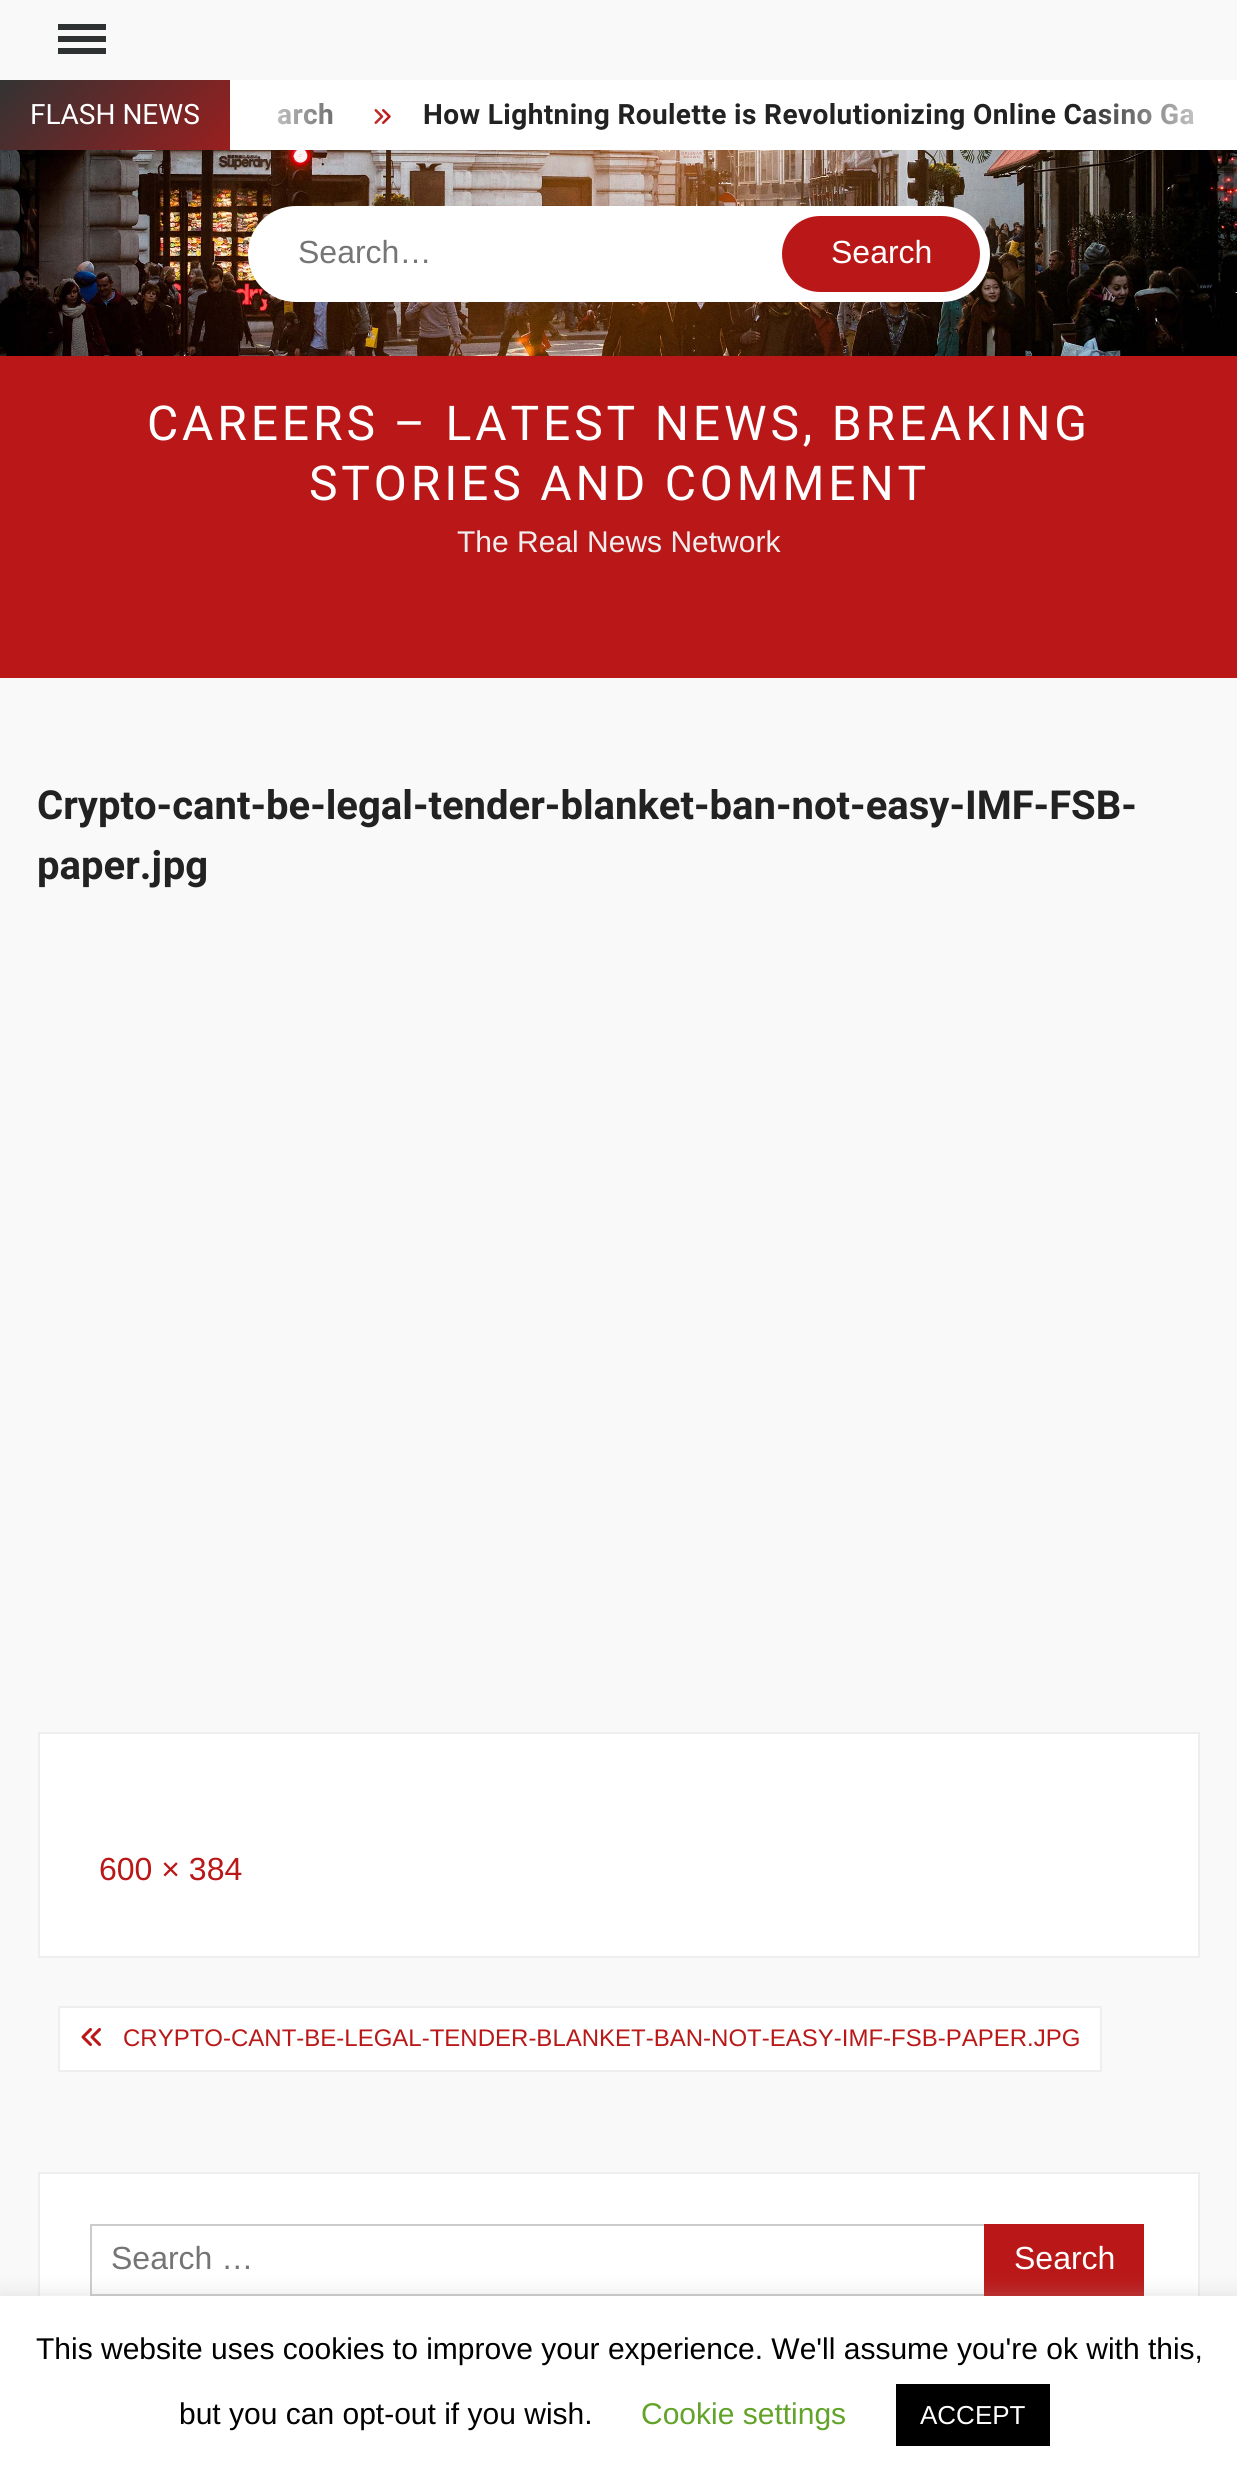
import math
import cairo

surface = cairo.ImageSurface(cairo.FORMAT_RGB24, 1237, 2479)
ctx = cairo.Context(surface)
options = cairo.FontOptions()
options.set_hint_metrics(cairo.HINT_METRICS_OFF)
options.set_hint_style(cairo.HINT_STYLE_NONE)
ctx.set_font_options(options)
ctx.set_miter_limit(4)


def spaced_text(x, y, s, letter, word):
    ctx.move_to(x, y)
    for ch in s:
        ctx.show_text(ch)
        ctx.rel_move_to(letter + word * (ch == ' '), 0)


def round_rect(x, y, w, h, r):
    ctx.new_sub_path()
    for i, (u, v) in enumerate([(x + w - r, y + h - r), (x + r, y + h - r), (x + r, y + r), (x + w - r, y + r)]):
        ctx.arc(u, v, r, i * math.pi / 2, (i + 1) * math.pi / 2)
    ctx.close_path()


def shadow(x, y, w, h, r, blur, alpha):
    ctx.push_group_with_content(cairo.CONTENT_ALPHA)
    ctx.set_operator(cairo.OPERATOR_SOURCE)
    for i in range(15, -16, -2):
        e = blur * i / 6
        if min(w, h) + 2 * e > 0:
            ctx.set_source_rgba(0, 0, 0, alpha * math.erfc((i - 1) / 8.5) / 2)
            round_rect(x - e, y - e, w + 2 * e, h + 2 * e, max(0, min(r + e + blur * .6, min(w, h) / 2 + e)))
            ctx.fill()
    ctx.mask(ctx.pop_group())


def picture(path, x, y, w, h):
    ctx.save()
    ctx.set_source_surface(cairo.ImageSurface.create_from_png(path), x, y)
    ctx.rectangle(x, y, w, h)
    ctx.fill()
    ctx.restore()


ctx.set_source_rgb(0.973, 0.973, 0.973)
ctx.paint()
ctx.set_source_rgb(0.18, 0.196, 0.2)
ctx.rectangle(58, 36, 48, 6)
ctx.fill()
ctx.rectangle(58, 24, 48, 6)
ctx.fill()
ctx.rectangle(58, 48, 48, 6)
ctx.fill()
ctx.set_source_rgb(1, 1, 1)
ctx.rectangle(231, 80, 1006, 70)
ctx.fill()
gradient = cairo.LinearGradient(760, 520, 160, -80)
gradient.add_color_stop_rgba(0, 0.729, 0.094, 0.094, 1)
gradient.add_color_stop_rgba(0.33, 0.933, 0.933, 0.933, 1)
gradient.add_color_stop_rgba(0.67, 0.729, 0.094, 0.094, 1)
gradient.add_color_stop_rgba(1, 0.2, 0.2, 0.2, 1)
ctx.set_source(gradient)
ctx.rectangle(0, 80, 230, 70)
ctx.fill()
ctx.select_font_face("Heebo")
ctx.set_font_size(28)
ctx.set_source_rgb(1, 1, 1)
ctx.move_to(30, 124)
ctx.show_text("FLASH NEWS")
ctx.select_font_face("Heebo", cairo.FONT_SLANT_NORMAL, cairo.FONT_WEIGHT_BOLD)
ctx.set_source_rgb(0.133, 0.133, 0.133)
spaced_text(277, 124, "arch", 0.4, 0)
picture("img1.png", 374, 109, 17, 15)
gradient = cairo.LinearGradient(230, 115, 390, 115)
gradient.add_color_stop_rgba(0, 1, 1, 1, 1)
gradient.add_color_stop_rgba(1, 1, 1, 1, 0)
ctx.set_source(gradient)
ctx.rectangle(230, 80, 157, 70)
ctx.fill()
ctx.set_source_rgb(0.133, 0.133, 0.133)
spaced_text(423, 124, "How Lightning Roulette is Revolutionizing Online Casino Ga", 0.4, 0)
gradient = cairo.LinearGradient(1078, 115, 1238, 115)
gradient.add_color_stop_rgba(0, 1, 1, 1, 0)
gradient.add_color_stop_rgba(1, 1, 1, 1, 1)
ctx.set_source(gradient)
ctx.rectangle(1083, 103, 111, 22)
ctx.fill()
picture("img2.png", 0, 150, 1237, 206)
ctx.set_source_rgb(1, 1, 1)
round_rect(248, 206, 742, 96, 48)
ctx.fill()
ctx.select_font_face("Arimo")
ctx.set_font_size(32)
ctx.set_source_rgb(0.459, 0.459, 0.459)
ctx.move_to(298, 263)
ctx.show_text("Search…")
ctx.save()
round_rect(258, 216, 722, 76, 38)
ctx.clip()
ctx.set_source_rgb(0.729, 0.094, 0.094)
round_rect(782, 216, 200, 76, 38)
ctx.fill()
ctx.restore()
ctx.set_source_rgb(1, 1, 1)
ctx.move_to(831, 263)
ctx.show_text("Search")
ctx.set_source_rgb(0.729, 0.094, 0.094)
ctx.rectangle(0, 356, 1237, 322)
ctx.fill()
ctx.select_font_face("Heebo")
ctx.set_font_size(48)
ctx.set_source_rgb(1, 1, 1)
spaced_text(147, 440, "CAREERS – LATEST NEWS, BREAKING", 3.85, 0)
spaced_text(309, 500, "STORIES AND COMMENT", 3.85, 0)
ctx.select_font_face("Arimo")
ctx.set_font_size(30)
ctx.set_source_rgb(0.933, 0.933, 0.933)
ctx.move_to(457, 552)
ctx.show_text("The Real News Network")
ctx.select_font_face("Heebo", cairo.FONT_SLANT_NORMAL, cairo.FONT_WEIGHT_BOLD)
ctx.set_font_size(40)
ctx.set_source_rgb(0.133, 0.133, 0.133)
ctx.move_to(37, 819)
ctx.show_text("Crypto-cant-be-legal-tender-blanket-ban-not-easy-IMF-FSB-")
ctx.move_to(37, 879)
ctx.show_text("paper.jpg")
ctx.set_source_rgb(1, 1, 1)
ctx.rectangle(39, 1733, 1160, 224)
ctx.fill_preserve()
ctx.set_source_rgb(0.933, 0.933, 0.933)
ctx.stroke()
ctx.select_font_face("Arimo")
ctx.set_font_size(32)
ctx.set_source_rgb(0.729, 0.094, 0.094)
ctx.move_to(99, 1880)
ctx.show_text("600 × 384")
ctx.set_source_rgb(1, 1, 1)
ctx.rectangle(59, 2007, 1042, 64)
ctx.fill_preserve()
ctx.set_source_rgb(0.933, 0.933, 0.933)
ctx.stroke()
picture("img3.png", 81, 2028, 20, 18)
ctx.set_font_size(24)
ctx.set_source_rgb(0.729, 0.094, 0.094)
ctx.move_to(123, 2046)
ctx.show_text("CRYPTO-CANT-BE-LEGAL-TENDER-BLANKET-BAN-NOT-EASY-IMF-FSB-PAPER.JPG")
ctx.set_source_rgb(1, 1, 1)
ctx.rectangle(40, 2174, 1158, 122)
ctx.fill()
ctx.rectangle(39, 2173, 1160, 174)
ctx.set_source_rgb(0.933, 0.933, 0.933)
ctx.stroke()
ctx.rectangle(91, 2225, 894, 70)
ctx.set_source_rgb(0.8, 0.8, 0.8)
ctx.stroke()
ctx.set_font_size(32)
ctx.set_source_rgb(0.459, 0.459, 0.459)
ctx.move_to(111, 2269)
ctx.show_text("Search …")
ctx.set_source_rgb(0.729, 0.094, 0.094)
ctx.rectangle(984, 2224, 160, 72)
ctx.fill()
ctx.set_source_rgb(1, 1, 1)
ctx.move_to(1014, 2269)
ctx.show_text("Search")
ctx.set_source_rgb(0.675, 0.671, 0.671)
shadow(0, 2294, 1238, 184, 0, 10, 0.3)
ctx.set_source_rgb(1, 1, 1)
ctx.rectangle(0, 2296, 1237, 183)
ctx.fill()
ctx.set_font_size(30)
ctx.set_source_rgb(0, 0, 0)
ctx.move_to(36, 2359)
ctx.show_text("This website uses cookies to improve your experience. We'll assume you're ok with this,")
ctx.move_to(179, 2424)
ctx.show_text("but you can opt-out if you wish.")
ctx.set_source_rgb(0.384, 0.639, 0.161)
ctx.move_to(641, 2424)
ctx.show_text("Cookie settings")
ctx.set_source_rgb(0, 0, 0)
ctx.rectangle(896, 2384, 154, 62)
ctx.fill()
ctx.set_font_size(26)
ctx.set_source_rgb(1, 1, 1)
ctx.move_to(920, 2424)
ctx.show_text("ACCEPT")
surface.write_to_png("page.png")
